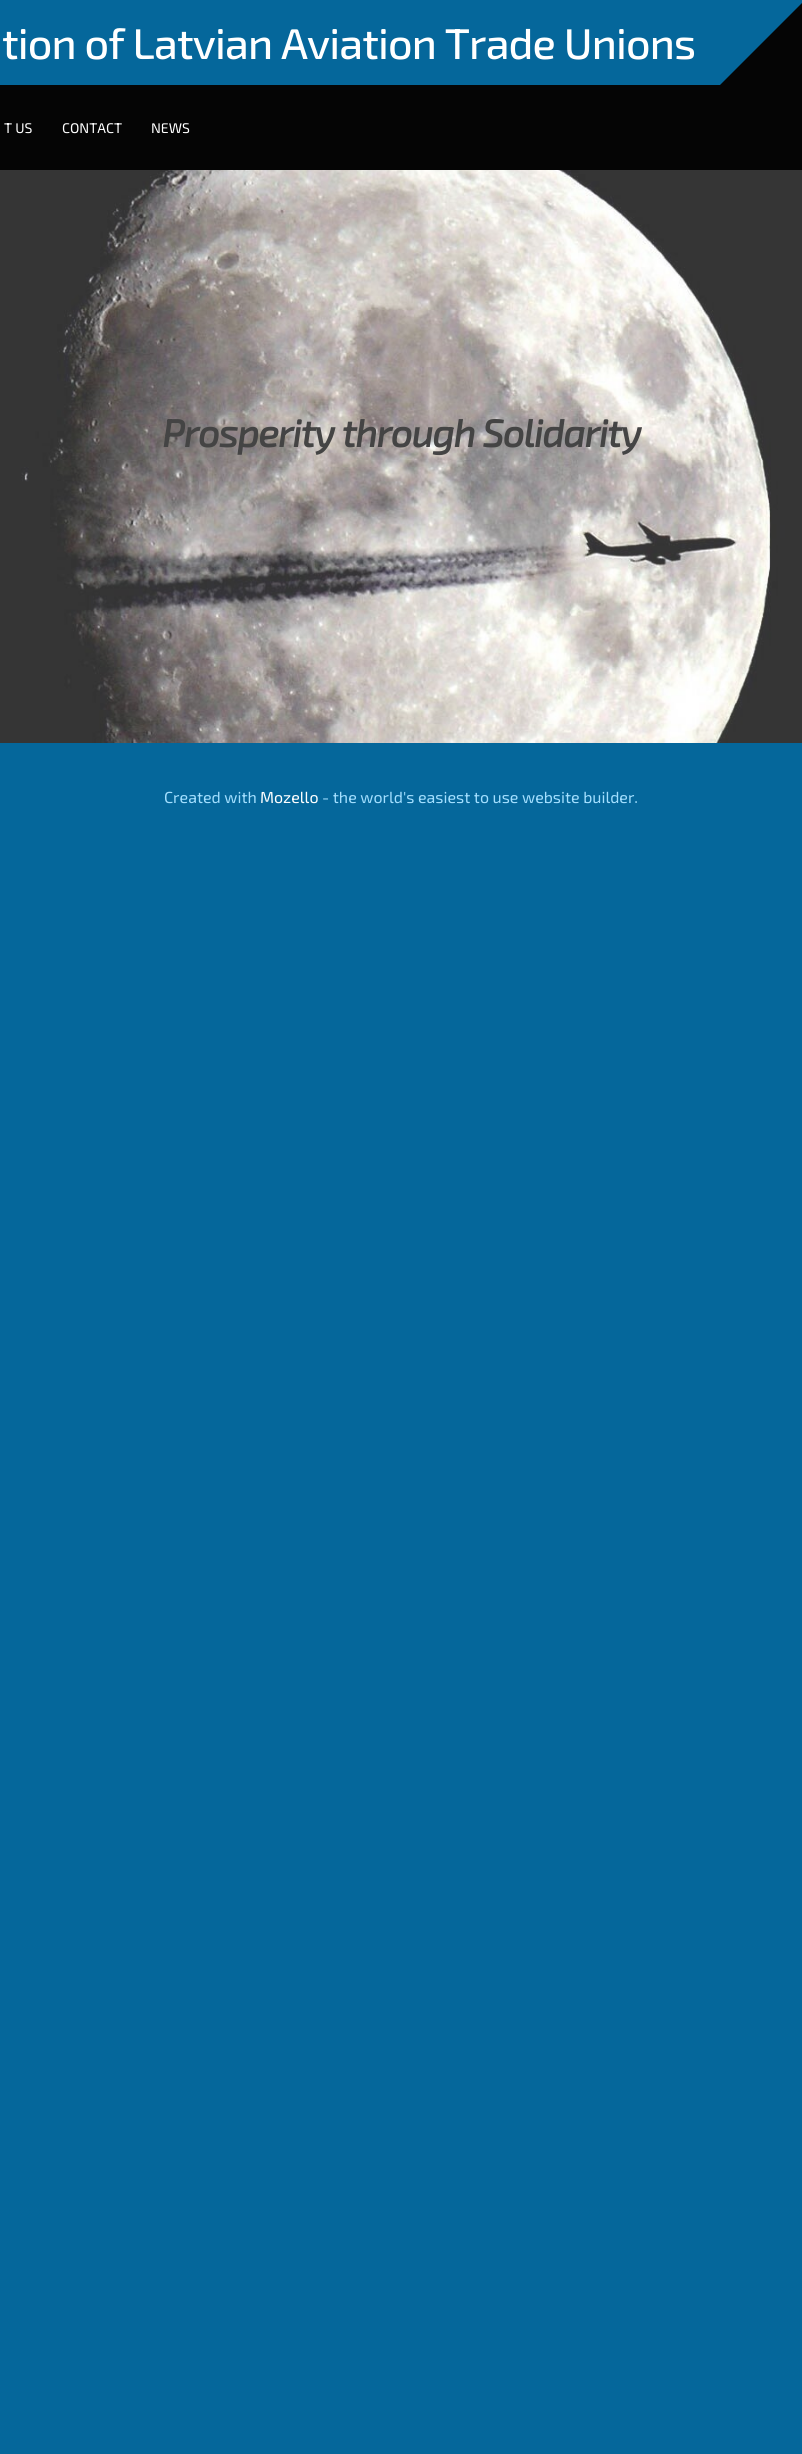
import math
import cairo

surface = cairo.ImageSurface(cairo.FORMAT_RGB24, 802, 2454)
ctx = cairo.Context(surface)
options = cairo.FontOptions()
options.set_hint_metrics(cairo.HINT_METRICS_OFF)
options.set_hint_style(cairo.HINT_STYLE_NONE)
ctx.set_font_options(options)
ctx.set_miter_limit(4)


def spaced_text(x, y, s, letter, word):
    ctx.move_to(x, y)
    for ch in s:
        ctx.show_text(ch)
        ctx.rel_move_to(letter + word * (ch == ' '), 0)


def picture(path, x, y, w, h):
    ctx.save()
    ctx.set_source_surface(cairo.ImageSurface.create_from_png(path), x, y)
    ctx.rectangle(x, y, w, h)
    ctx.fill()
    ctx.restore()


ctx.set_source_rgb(0.02, 0.404, 0.608)
ctx.paint()
ctx.set_source_rgb(0.02, 0.02, 0.02)
ctx.rectangle(0, 3, 802, 167)
ctx.fill()
ctx.set_source_rgb(0.02, 0.404, 0.608)
ctx.rectangle(0, 3, 720, 82)
ctx.fill()
ctx.select_font_face("Exo 2 Medium")
ctx.set_font_size(43)
ctx.set_source_rgb(1, 1, 1)
spaced_text(2, 59, "tion of Latvian Aviation Trade Unions", -0.85, 0)
ctx.set_source_rgb(0.02, 0.404, 0.608)
ctx.new_path()
ctx.move_to(720, 0)
ctx.line_to(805, 0)
ctx.line_to(720, 85)
ctx.close_path()
ctx.fill()
ctx.select_font_face("Exo 2")
ctx.set_font_size(14)
ctx.set_source_rgb(1, 1, 1)
ctx.move_to(4, 133)
ctx.show_text("T US")
ctx.move_to(62, 133)
ctx.show_text("CONTACT")
ctx.move_to(151, 133)
ctx.show_text("NEWS")
picture("img1.png", 0, 170, 802, 573)
ctx.select_font_face("Exo 2", cairo.FONT_SLANT_ITALIC, cairo.FONT_WEIGHT_BOLD)
ctx.set_font_size(38.4)
ctx.set_source_rgb(0.267, 0.267, 0.267)
spaced_text(162, 447, "Prosperity through Solidarity", -0.95, 0)
ctx.select_font_face("Exo 2")
ctx.set_font_size(16)
ctx.set_source_rgb(0.639, 0.875, 1)
ctx.move_to(164, 803)
ctx.show_text("Created with")
ctx.set_source_rgb(1, 1, 1)
ctx.move_to(260, 803)
ctx.show_text("Mozello")
ctx.set_source_rgb(0.639, 0.875, 1)
ctx.move_to(322, 803)
ctx.show_text("- the world's easiest to use website builder.")
surface.write_to_png("page.png")
